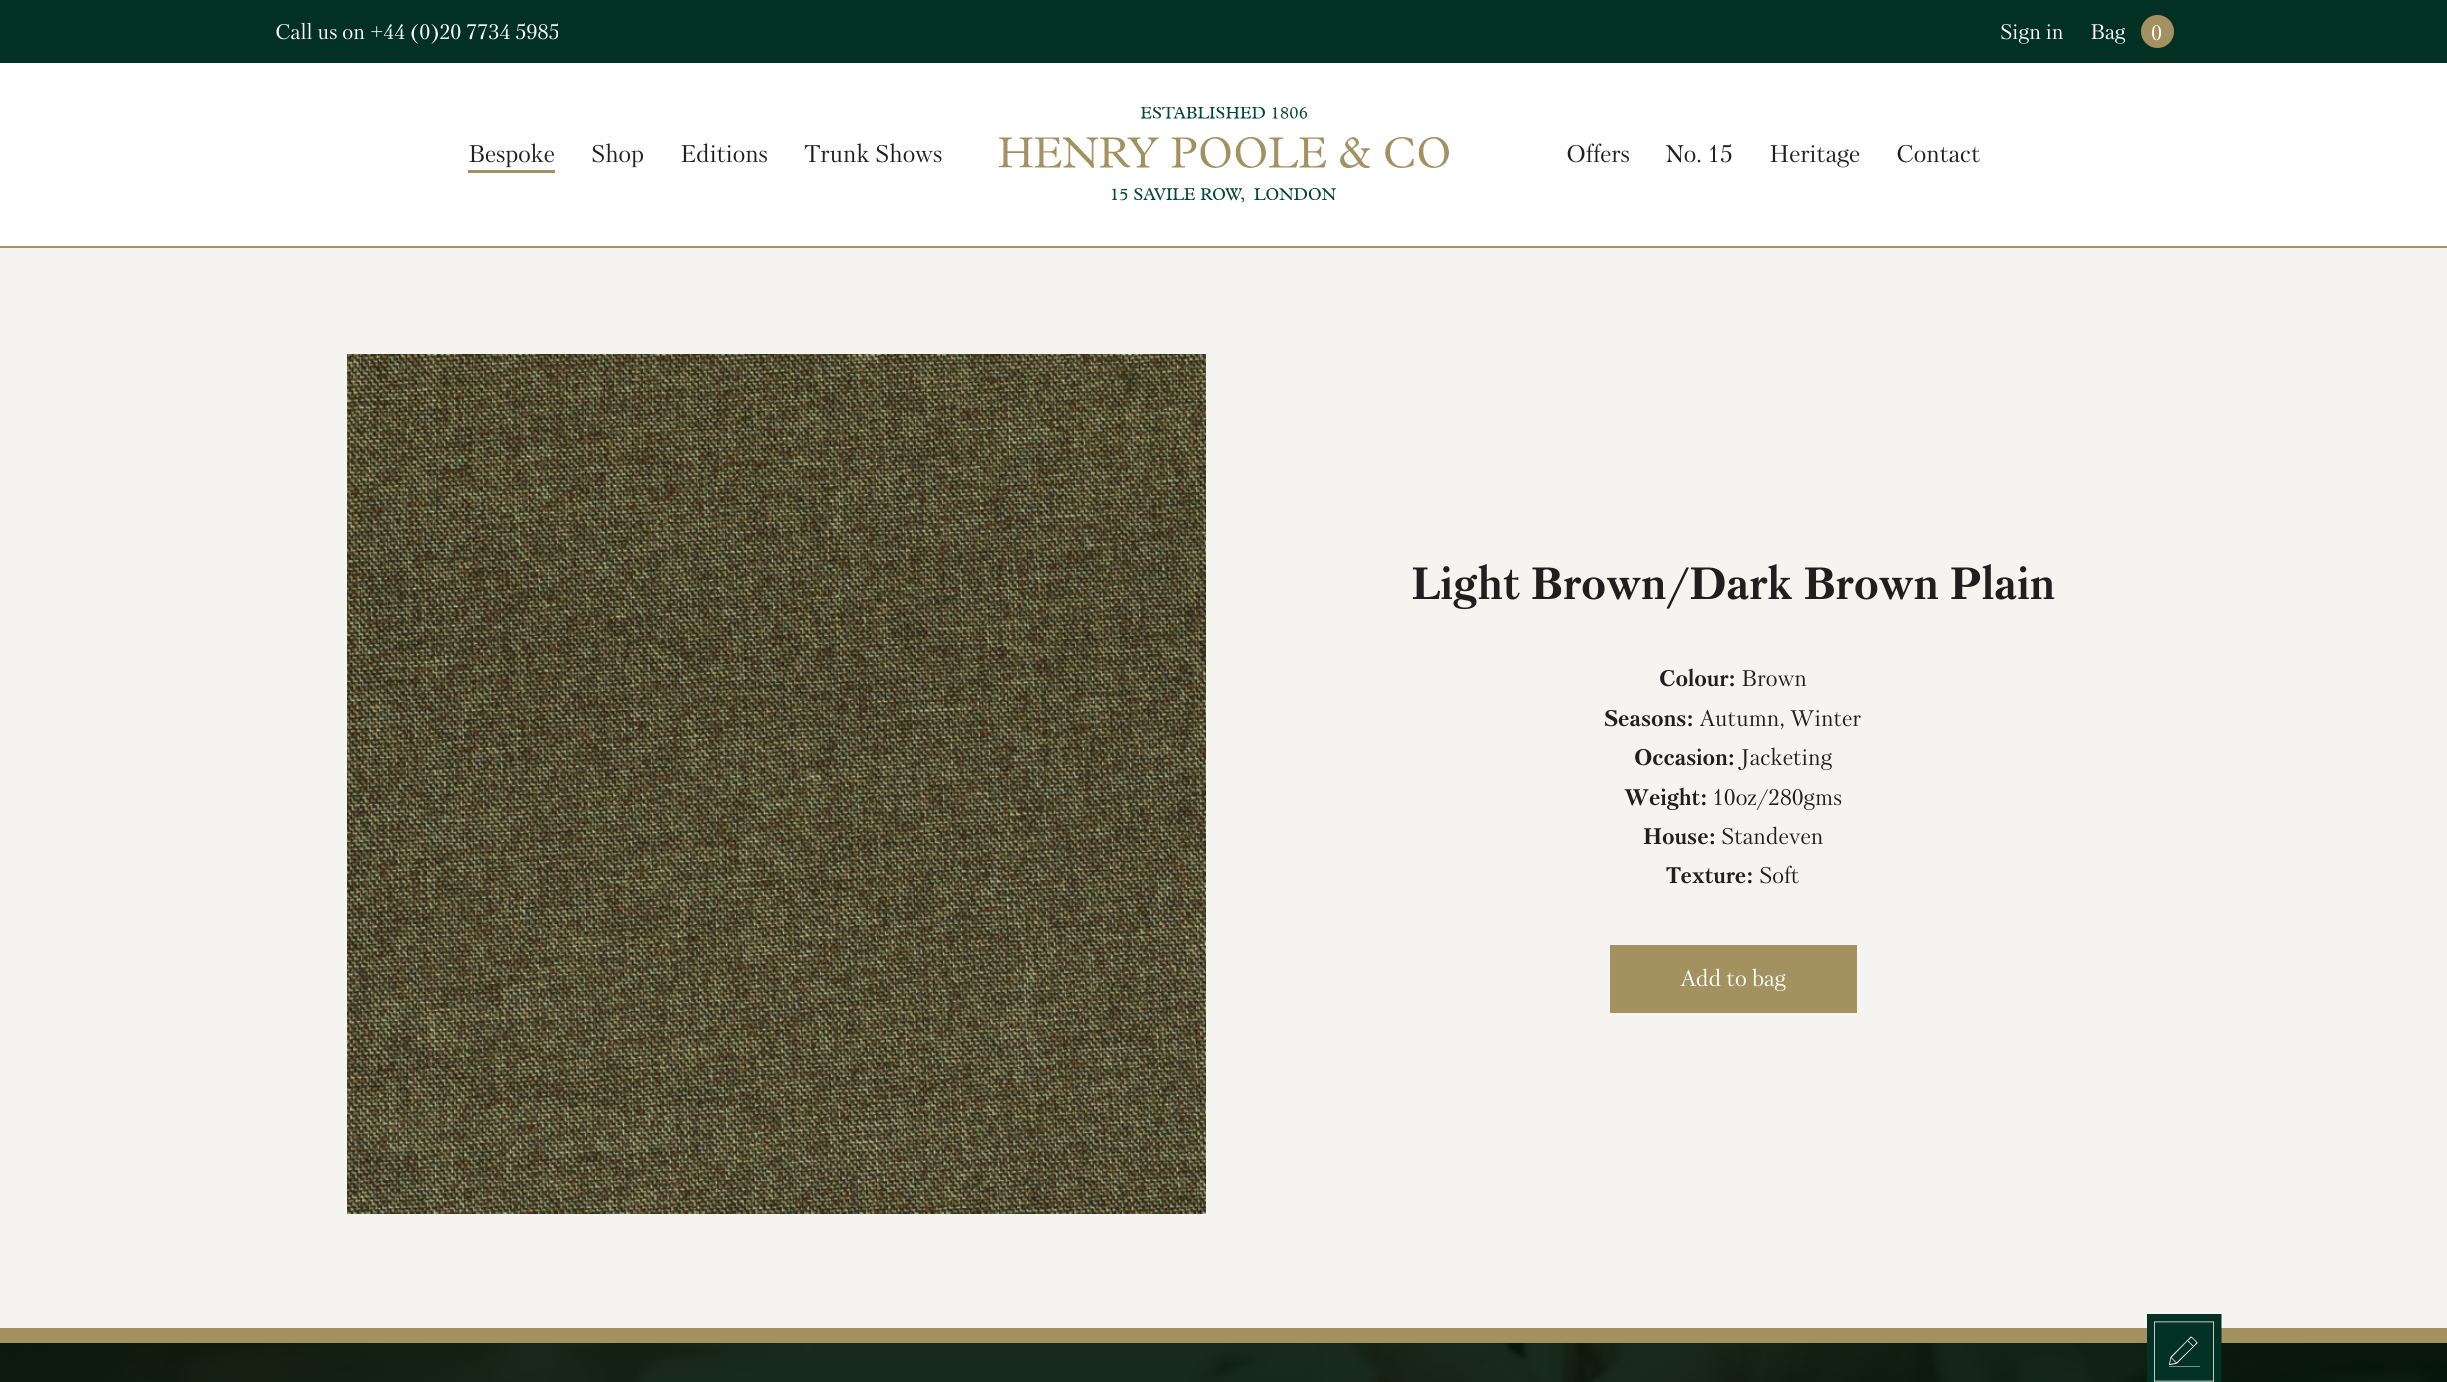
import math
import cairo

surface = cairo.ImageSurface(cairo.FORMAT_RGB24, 2447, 1382)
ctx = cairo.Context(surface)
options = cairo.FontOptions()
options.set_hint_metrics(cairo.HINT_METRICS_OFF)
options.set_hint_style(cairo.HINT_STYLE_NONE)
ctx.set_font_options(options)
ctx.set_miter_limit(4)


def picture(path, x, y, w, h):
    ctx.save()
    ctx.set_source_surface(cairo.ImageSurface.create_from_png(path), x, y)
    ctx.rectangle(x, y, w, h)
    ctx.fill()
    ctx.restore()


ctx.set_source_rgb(0.961, 0.957, 0.941)
ctx.paint()
ctx.set_source_rgb(0.008, 0.192, 0.141)
ctx.rectangle(0, 0, 2447, 63)
ctx.fill()
ctx.select_font_face("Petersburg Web")
ctx.set_font_size(21)
ctx.set_source_rgb(1, 1, 1)
ctx.move_to(275, 39)
ctx.show_text("Call us on +44 (0)20 7734 5985")
ctx.move_to(2000, 39)
ctx.show_text("Sign in")
ctx.move_to(2090, 39)
ctx.show_text("Bag")
ctx.set_source_rgb(0.643, 0.569, 0.376)
ctx.new_path()
ctx.arc(2157.5, 31.5, 16.5, 0, 2 * math.pi)
ctx.fill()
ctx.set_source_rgb(1, 1, 1)
ctx.move_to(2151, 40)
ctx.show_text("0")
ctx.rectangle(0, 63, 2447, 183)
ctx.fill()
ctx.set_source_rgb(0.643, 0.569, 0.376)
ctx.rectangle(0, 246, 2447, 2)
ctx.fill()
picture("img1.png", 999, 107, 450, 96)
ctx.set_font_size(24)
ctx.set_source_rgb(0.122, 0.122, 0.122)
ctx.move_to(468, 162)
ctx.show_text("Bespoke")
ctx.set_source_rgb(0.643, 0.569, 0.376)
ctx.rectangle(468, 170, 87, 3)
ctx.fill()
ctx.set_source_rgb(0.122, 0.122, 0.122)
ctx.move_to(591, 162)
ctx.show_text("Shop")
ctx.move_to(680, 162)
ctx.show_text("Editions")
ctx.move_to(804, 162)
ctx.show_text("Trunk Shows")
ctx.move_to(1566, 162)
ctx.show_text("Offers")
ctx.move_to(1666, 162)
ctx.show_text("No. 15")
ctx.move_to(1769, 162)
ctx.show_text("Heritage")
ctx.move_to(1896, 162)
ctx.show_text("Contact")
picture("img2.png", 347, 354, 859, 860)
ctx.select_font_face("Petersburg Web", cairo.FONT_SLANT_NORMAL, cairo.FONT_WEIGHT_BOLD)
ctx.set_font_size(45)
ctx.move_to(1411, 599)
ctx.show_text("Light Brown/Dark Brown Plain")
ctx.set_font_size(22.5)
ctx.move_to(1659, 686)
ctx.show_text("Colour:")
ctx.select_font_face("Petersburg Web")
ctx.move_to(1741, 686)
ctx.show_text("Brown")
ctx.select_font_face("Petersburg Web", cairo.FONT_SLANT_NORMAL, cairo.FONT_WEIGHT_BOLD)
ctx.move_to(1604, 726)
ctx.show_text("Seasons:")
ctx.select_font_face("Petersburg Web")
ctx.move_to(1699, 726)
ctx.show_text("Autumn, Winter")
ctx.select_font_face("Petersburg Web", cairo.FONT_SLANT_NORMAL, cairo.FONT_WEIGHT_BOLD)
ctx.move_to(1634, 765)
ctx.show_text("Occasion:")
ctx.select_font_face("Petersburg Web")
ctx.move_to(1740, 765)
ctx.show_text("Jacketing")
ctx.select_font_face("Petersburg Web", cairo.FONT_SLANT_NORMAL, cairo.FONT_WEIGHT_BOLD)
ctx.move_to(1624, 805)
ctx.show_text("Weight:")
ctx.select_font_face("Petersburg Web")
ctx.move_to(1712, 805)
ctx.show_text("10oz/280gms")
ctx.select_font_face("Petersburg Web", cairo.FONT_SLANT_NORMAL, cairo.FONT_WEIGHT_BOLD)
ctx.move_to(1643, 844)
ctx.show_text("House:")
ctx.select_font_face("Petersburg Web")
ctx.move_to(1721, 844)
ctx.show_text("Standeven")
ctx.select_font_face("Petersburg Web", cairo.FONT_SLANT_NORMAL, cairo.FONT_WEIGHT_BOLD)
ctx.move_to(1666, 883)
ctx.show_text("Texture:")
ctx.select_font_face("Petersburg Web")
ctx.move_to(1759, 883)
ctx.show_text("Soft")
ctx.set_source_rgb(0.643, 0.569, 0.376)
ctx.rectangle(1610, 945, 247, 68)
ctx.fill()
ctx.set_source_rgb(1, 1, 1)
ctx.move_to(1680, 986)
ctx.show_text("Add to bag")
ctx.set_source_rgb(0.643, 0.569, 0.376)
ctx.rectangle(0, 1328, 2447, 15)
ctx.fill()
picture("img3.png", 0, 1343, 2447, 39)
ctx.set_source_rgb(0.012, 0.192, 0.141)
ctx.rectangle(2147, 1314, 74, 68)
ctx.fill()
ctx.save()
ctx.rectangle(2147, 1314, 75, 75)
ctx.clip()
ctx.new_path()
ctx.move_to(2146.5, 1314)
ctx.line_to(2221.5, 1314)
ctx.line_to(2221.5, 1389)
ctx.line_to(2146.5, 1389)
ctx.close_path()
ctx.clip()
ctx.new_path()
ctx.move_to(2146.5, 1314)
ctx.line_to(2221.5, 1314)
ctx.line_to(2221.5, 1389)
ctx.line_to(2146.5, 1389)
ctx.close_path()
ctx.set_line_width(1.5)
ctx.stroke()
ctx.restore()
ctx.save()
ctx.new_path()
ctx.move_to(2154, 1321.5)
ctx.line_to(2214, 1321.5)
ctx.line_to(2214, 1381.5)
ctx.line_to(2154, 1381.5)
ctx.close_path()
ctx.clip()
ctx.new_path()
ctx.move_to(2154, 1321.5)
ctx.line_to(2214, 1321.5)
ctx.line_to(2214, 1381.5)
ctx.line_to(2154, 1381.5)
ctx.close_path()
ctx.set_source_rgb(1, 1, 1)
ctx.set_line_width(1.5)
ctx.stroke()
ctx.restore()
ctx.set_source_rgb(1, 1, 1)
ctx.set_fill_rule(cairo.FILL_RULE_EVEN_ODD)
ctx.new_path()
ctx.move_to(2169.5, 1365)
ctx.line_to(2175.5, 1364)
ctx.curve_to(2178.5, 1363, 2177, 1363.5, 2180.5, 1360)
ctx.line_to(2197.5, 1343)
ctx.line_to(2197.5, 1342.5)
ctx.line_to(2192.5, 1337.5)
ctx.curve_to(2190.5, 1335.5, 2191, 1336.5, 2187.5, 1340)
ctx.line_to(2170.5, 1357)
ctx.line_to(2169, 1365)
ctx.close_path()
ctx.move_to(2191.5, 1337.5)
ctx.line_to(2196.5, 1342.5)
ctx.line_to(2193.5, 1346)
ctx.line_to(2188, 1340.5)
ctx.close_path()
ctx.move_to(2187.5, 1341)
ctx.line_to(2193, 1346.5)
ctx.line_to(2176.5, 1362.5)
ctx.line_to(2171.5, 1357.5)
ctx.close_path()
ctx.move_to(2171, 1358)
ctx.line_to(2176, 1363)
ctx.line_to(2170, 1364)
ctx.close_path()
ctx.fill()
ctx.set_fill_rule(cairo.FILL_RULE_WINDING)
ctx.new_path()
ctx.move_to(2199.5, 1366.5)
ctx.line_to(2169.5, 1366.5)
ctx.line_to(2169, 1367)
ctx.line_to(2169.5, 1367)
ctx.line_to(2199.5, 1367)
ctx.line_to(2200, 1367)
ctx.line_to(2200, 1366.5)
ctx.close_path()
ctx.fill()
surface.write_to_png("page.png")
